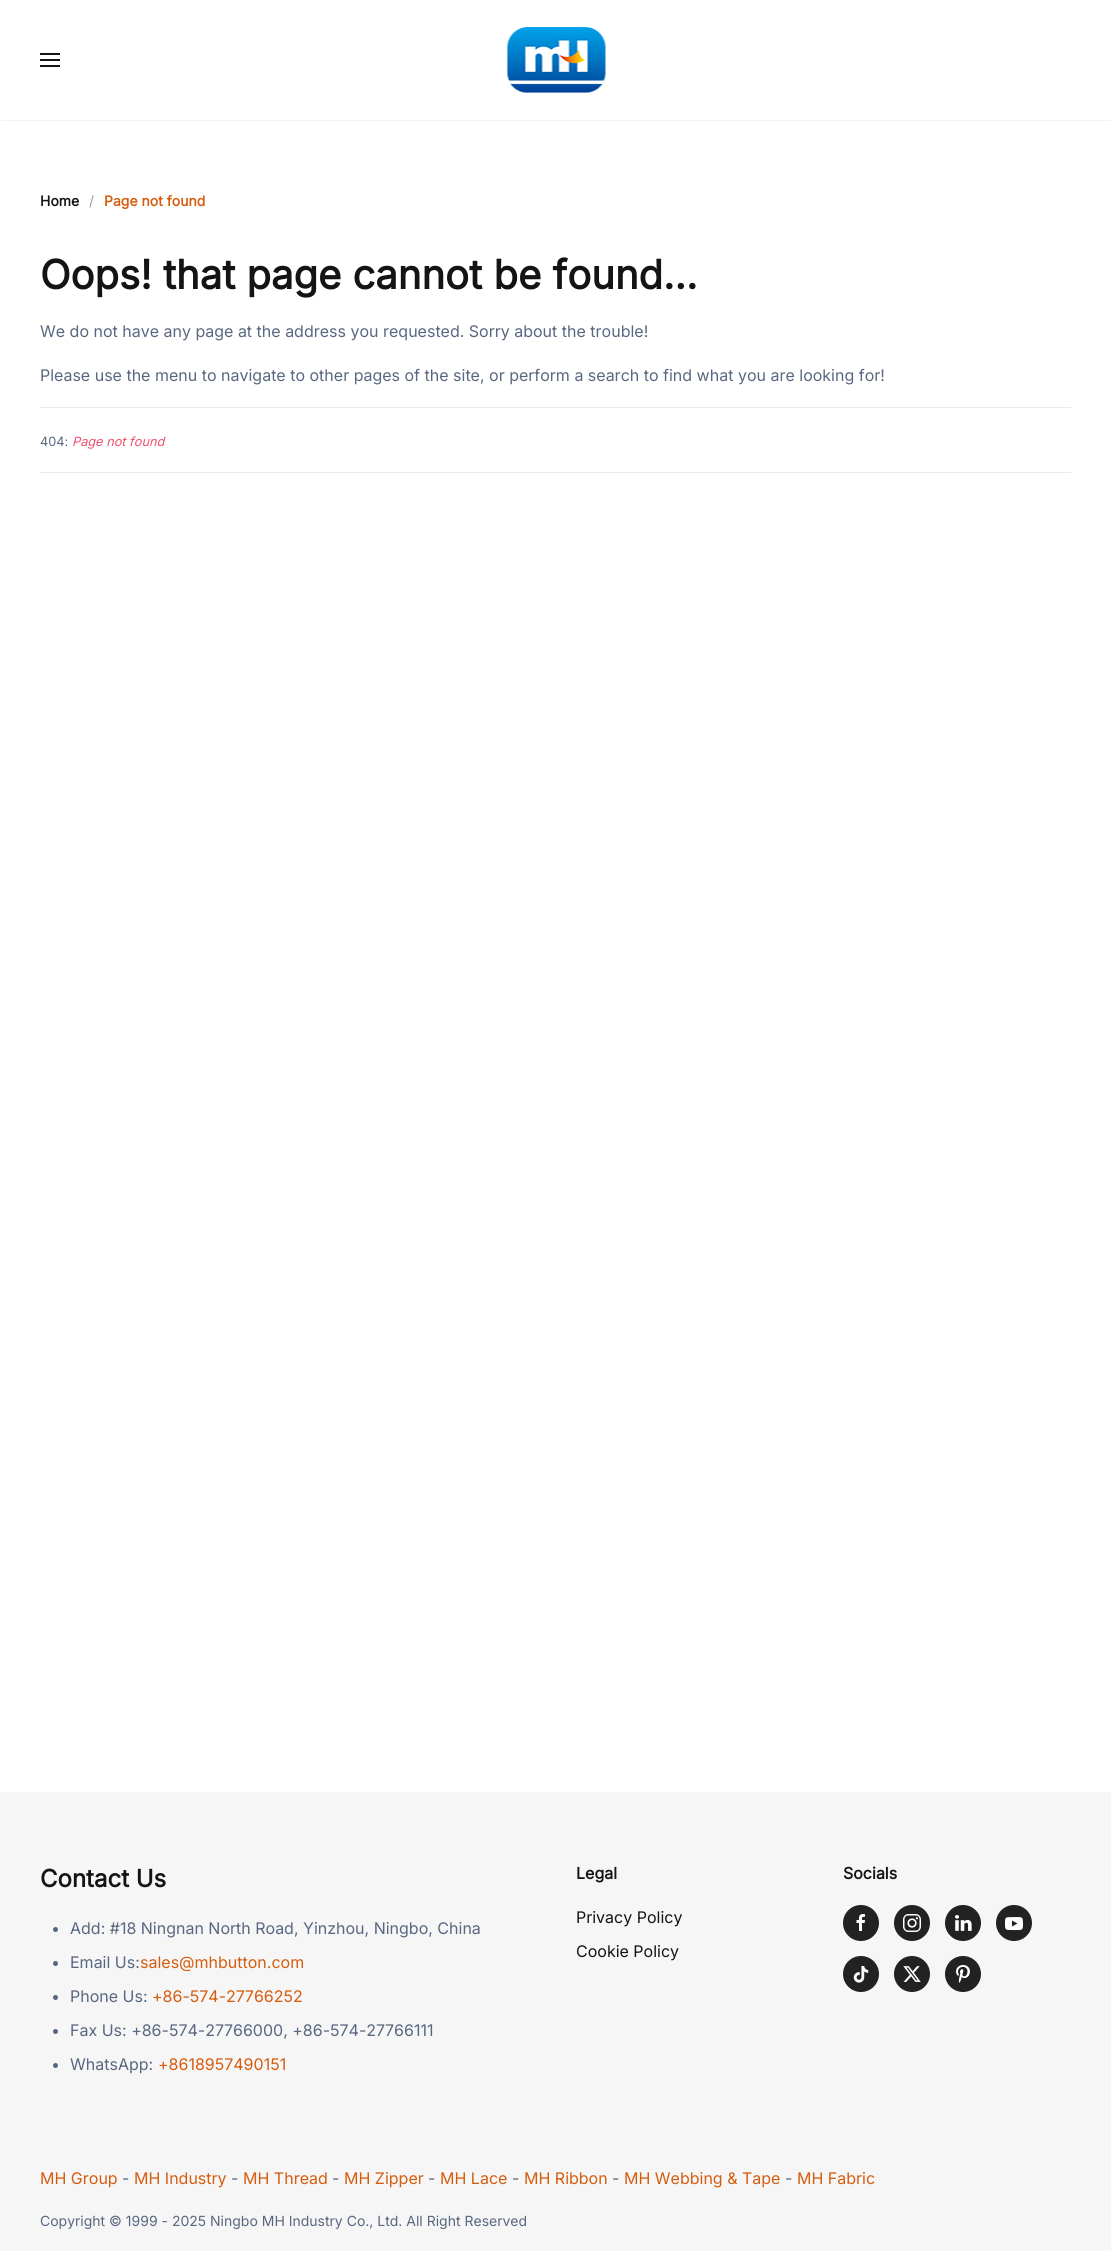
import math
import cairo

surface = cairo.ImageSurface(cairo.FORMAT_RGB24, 1111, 2251)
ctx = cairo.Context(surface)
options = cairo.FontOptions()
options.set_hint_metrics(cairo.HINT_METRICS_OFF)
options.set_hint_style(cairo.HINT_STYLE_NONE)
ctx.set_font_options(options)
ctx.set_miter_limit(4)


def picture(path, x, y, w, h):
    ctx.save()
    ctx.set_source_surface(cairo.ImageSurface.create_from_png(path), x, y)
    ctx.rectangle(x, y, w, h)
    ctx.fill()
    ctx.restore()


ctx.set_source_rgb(1, 1, 1)
ctx.paint()
ctx.set_source_rgb(0.973, 0.937, 0.937)
ctx.new_path()
ctx.move_to(1, 120)
ctx.line_to(1, 121)
ctx.line_to(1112, 121)
ctx.line_to(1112, 1)
ctx.line_to(1111, 1)
ctx.line_to(1111, 120)
ctx.close_path()
ctx.fill()
ctx.set_source_rgb(0.082, 0.082, 0.082)
ctx.rectangle(40, 53, 20, 2)
ctx.fill()
ctx.rectangle(40, 59, 20, 2)
ctx.fill()
ctx.rectangle(40, 65, 20, 2)
ctx.fill()
picture("img1.png", 506, 27, 100, 66)
ctx.select_font_face("Inter", cairo.FONT_SLANT_NORMAL, cairo.FONT_WEIGHT_BOLD)
ctx.set_font_size(14)
ctx.move_to(40, 206)
ctx.show_text("Home")
ctx.select_font_face("Inter")
ctx.set_source_rgb(0.608, 0.608, 0.608)
ctx.move_to(89, 206)
ctx.show_text("/")
ctx.select_font_face("Inter", cairo.FONT_SLANT_NORMAL, cairo.FONT_WEIGHT_BOLD)
ctx.set_source_rgb(0.835, 0.365, 0.059)
ctx.move_to(104, 206)
ctx.show_text("Page not found")
ctx.set_font_size(40)
ctx.set_source_rgb(0.082, 0.082, 0.082)
ctx.move_to(40, 289)
ctx.show_text("Oops! that page cannot be found...")
ctx.select_font_face("Inter")
ctx.set_font_size(16)
ctx.set_source_rgb(0.349, 0.404, 0.502)
ctx.move_to(40, 337)
ctx.show_text("We do not have any page at the address you requested. Sorry about the trouble!")
ctx.move_to(40, 381)
ctx.show_text("Please use the menu to navigate to other pages of the site, or perform a search to find what you are looking for!")
ctx.set_source_rgb(0.918, 0.918, 0.918)
ctx.rectangle(40, 407, 1031, 1)
ctx.fill()
ctx.set_font_size(12.75)
ctx.set_source_rgb(0.349, 0.404, 0.502)
ctx.move_to(40, 446)
ctx.show_text("404:")
ctx.select_font_face("Inter", cairo.FONT_SLANT_ITALIC)
ctx.set_source_rgb(0.941, 0.314, 0.431)
ctx.move_to(72, 446)
ctx.show_text("Page not found")
ctx.set_source_rgb(0.918, 0.918, 0.918)
ctx.rectangle(40, 472, 1031, 1)
ctx.fill()
ctx.set_source_rgb(0.961, 0.961, 0.961)
ctx.rectangle(0, 1792, 1111, 459)
ctx.fill()
ctx.select_font_face("Inter", cairo.FONT_SLANT_NORMAL, cairo.FONT_WEIGHT_BOLD)
ctx.set_font_size(24)
ctx.set_source_rgb(0.082, 0.082, 0.082)
ctx.move_to(40, 1887)
ctx.show_text("Contact Us")
ctx.set_source_rgb(0.349, 0.404, 0.502)
ctx.new_path()
ctx.arc(55.5, 1929.5, 2.5, 0, 2 * math.pi)
ctx.fill()
ctx.select_font_face("Inter")
ctx.set_font_size(16)
ctx.move_to(70, 1934)
ctx.show_text("Add: #18 Ningnan North Road, Yinzhou, Ningbo, China")
ctx.new_path()
ctx.arc(55.5, 1963.5, 2.5, 0, 2 * math.pi)
ctx.fill()
ctx.move_to(70, 1968)
ctx.show_text("Email Us:")
ctx.set_source_rgb(0.835, 0.365, 0.059)
ctx.move_to(140, 1968)
ctx.show_text("sales@mhbutton.com")
ctx.set_source_rgb(0.349, 0.404, 0.502)
ctx.new_path()
ctx.arc(55.5, 1997.5, 2.5, 0, 2 * math.pi)
ctx.fill()
ctx.move_to(70, 2002)
ctx.show_text("Phone Us:")
ctx.set_source_rgb(0.835, 0.365, 0.059)
ctx.move_to(152, 2002)
ctx.show_text("+86-574-27766252")
ctx.set_source_rgb(0.349, 0.404, 0.502)
ctx.new_path()
ctx.arc(55.5, 2031.5, 2.5, 0, 2 * math.pi)
ctx.fill()
ctx.move_to(70, 2036)
ctx.show_text("Fax Us: +86-574-27766000, +86-574-27766111")
ctx.new_path()
ctx.arc(55.5, 2065.5, 2.5, 0, 2 * math.pi)
ctx.fill()
ctx.move_to(70, 2070)
ctx.show_text("WhatsApp:")
ctx.set_source_rgb(0.835, 0.365, 0.059)
ctx.move_to(158, 2070)
ctx.show_text("+8618957490151")
ctx.select_font_face("Inter", cairo.FONT_SLANT_NORMAL, cairo.FONT_WEIGHT_BOLD)
ctx.set_source_rgb(0.082, 0.082, 0.082)
ctx.move_to(576, 1879)
ctx.show_text("Legal")
ctx.select_font_face("Inter")
ctx.move_to(576, 1923)
ctx.show_text("Privacy Policy")
ctx.move_to(576, 1957)
ctx.show_text("Cookie Policy")
ctx.select_font_face("Inter", cairo.FONT_SLANT_NORMAL, cairo.FONT_WEIGHT_BOLD)
ctx.move_to(843, 1879)
ctx.show_text("Socials")
ctx.set_source_rgb(0.133, 0.133, 0.133)
ctx.new_path()
ctx.arc(861, 1923, 18, 0, 2 * math.pi)
ctx.fill()
picture("img2.png", 856, 1914, 9, 17)
ctx.arc(912, 1923, 18, 0, 2 * math.pi)
ctx.fill()
picture("img3.png", 903, 1914, 18, 18)
ctx.arc(963, 1923, 18, 0, 2 * math.pi)
ctx.fill()
picture("img4.png", 955, 1915, 17, 16)
ctx.arc(1014, 1923, 18, 0, 2 * math.pi)
ctx.fill()
picture("img5.png", 1005, 1917, 18, 14)
ctx.arc(861, 1974, 18, 0, 2 * math.pi)
ctx.fill()
picture("img6.png", 853, 1966, 16, 17)
ctx.arc(912, 1974, 18, 0, 2 * math.pi)
ctx.fill()
picture("img7.png", 903, 1966, 18, 16)
ctx.arc(963, 1974, 18, 0, 2 * math.pi)
ctx.fill()
picture("img8.png", 956, 1965, 14, 18)
ctx.select_font_face("Inter")
ctx.set_source_rgb(0.835, 0.365, 0.059)
ctx.move_to(40, 2184)
ctx.show_text("MH Group")
ctx.set_source_rgb(0.349, 0.404, 0.502)
ctx.move_to(122, 2184)
ctx.show_text("-")
ctx.set_source_rgb(0.835, 0.365, 0.059)
ctx.move_to(134, 2184)
ctx.show_text("MH Industry")
ctx.set_source_rgb(0.349, 0.404, 0.502)
ctx.move_to(231, 2184)
ctx.show_text("-")
ctx.set_source_rgb(0.835, 0.365, 0.059)
ctx.move_to(243, 2184)
ctx.show_text("MH Thread")
ctx.set_source_rgb(0.349, 0.404, 0.502)
ctx.move_to(332, 2184)
ctx.show_text("-")
ctx.set_source_rgb(0.835, 0.365, 0.059)
ctx.move_to(344, 2184)
ctx.show_text("MH Zipper")
ctx.set_source_rgb(0.349, 0.404, 0.502)
ctx.move_to(428, 2184)
ctx.show_text("-")
ctx.set_source_rgb(0.835, 0.365, 0.059)
ctx.move_to(440, 2184)
ctx.show_text("MH Lace")
ctx.set_source_rgb(0.349, 0.404, 0.502)
ctx.move_to(512, 2184)
ctx.show_text("-")
ctx.set_source_rgb(0.835, 0.365, 0.059)
ctx.move_to(524, 2184)
ctx.show_text("MH Ribbon")
ctx.set_source_rgb(0.349, 0.404, 0.502)
ctx.move_to(612, 2184)
ctx.show_text("-")
ctx.set_source_rgb(0.835, 0.365, 0.059)
ctx.move_to(624, 2184)
ctx.show_text("MH Webbing & Tape")
ctx.set_source_rgb(0.349, 0.404, 0.502)
ctx.move_to(785, 2184)
ctx.show_text("-")
ctx.set_source_rgb(0.835, 0.365, 0.059)
ctx.move_to(797, 2184)
ctx.show_text("MH Fabric")
ctx.set_font_size(14)
ctx.set_source_rgb(0.349, 0.404, 0.502)
ctx.move_to(40, 2226)
ctx.show_text("Copyright © 1999 - 2025 Ningbo MH Industry Co., Ltd. All Right Reserved")
surface.write_to_png("page.png")
